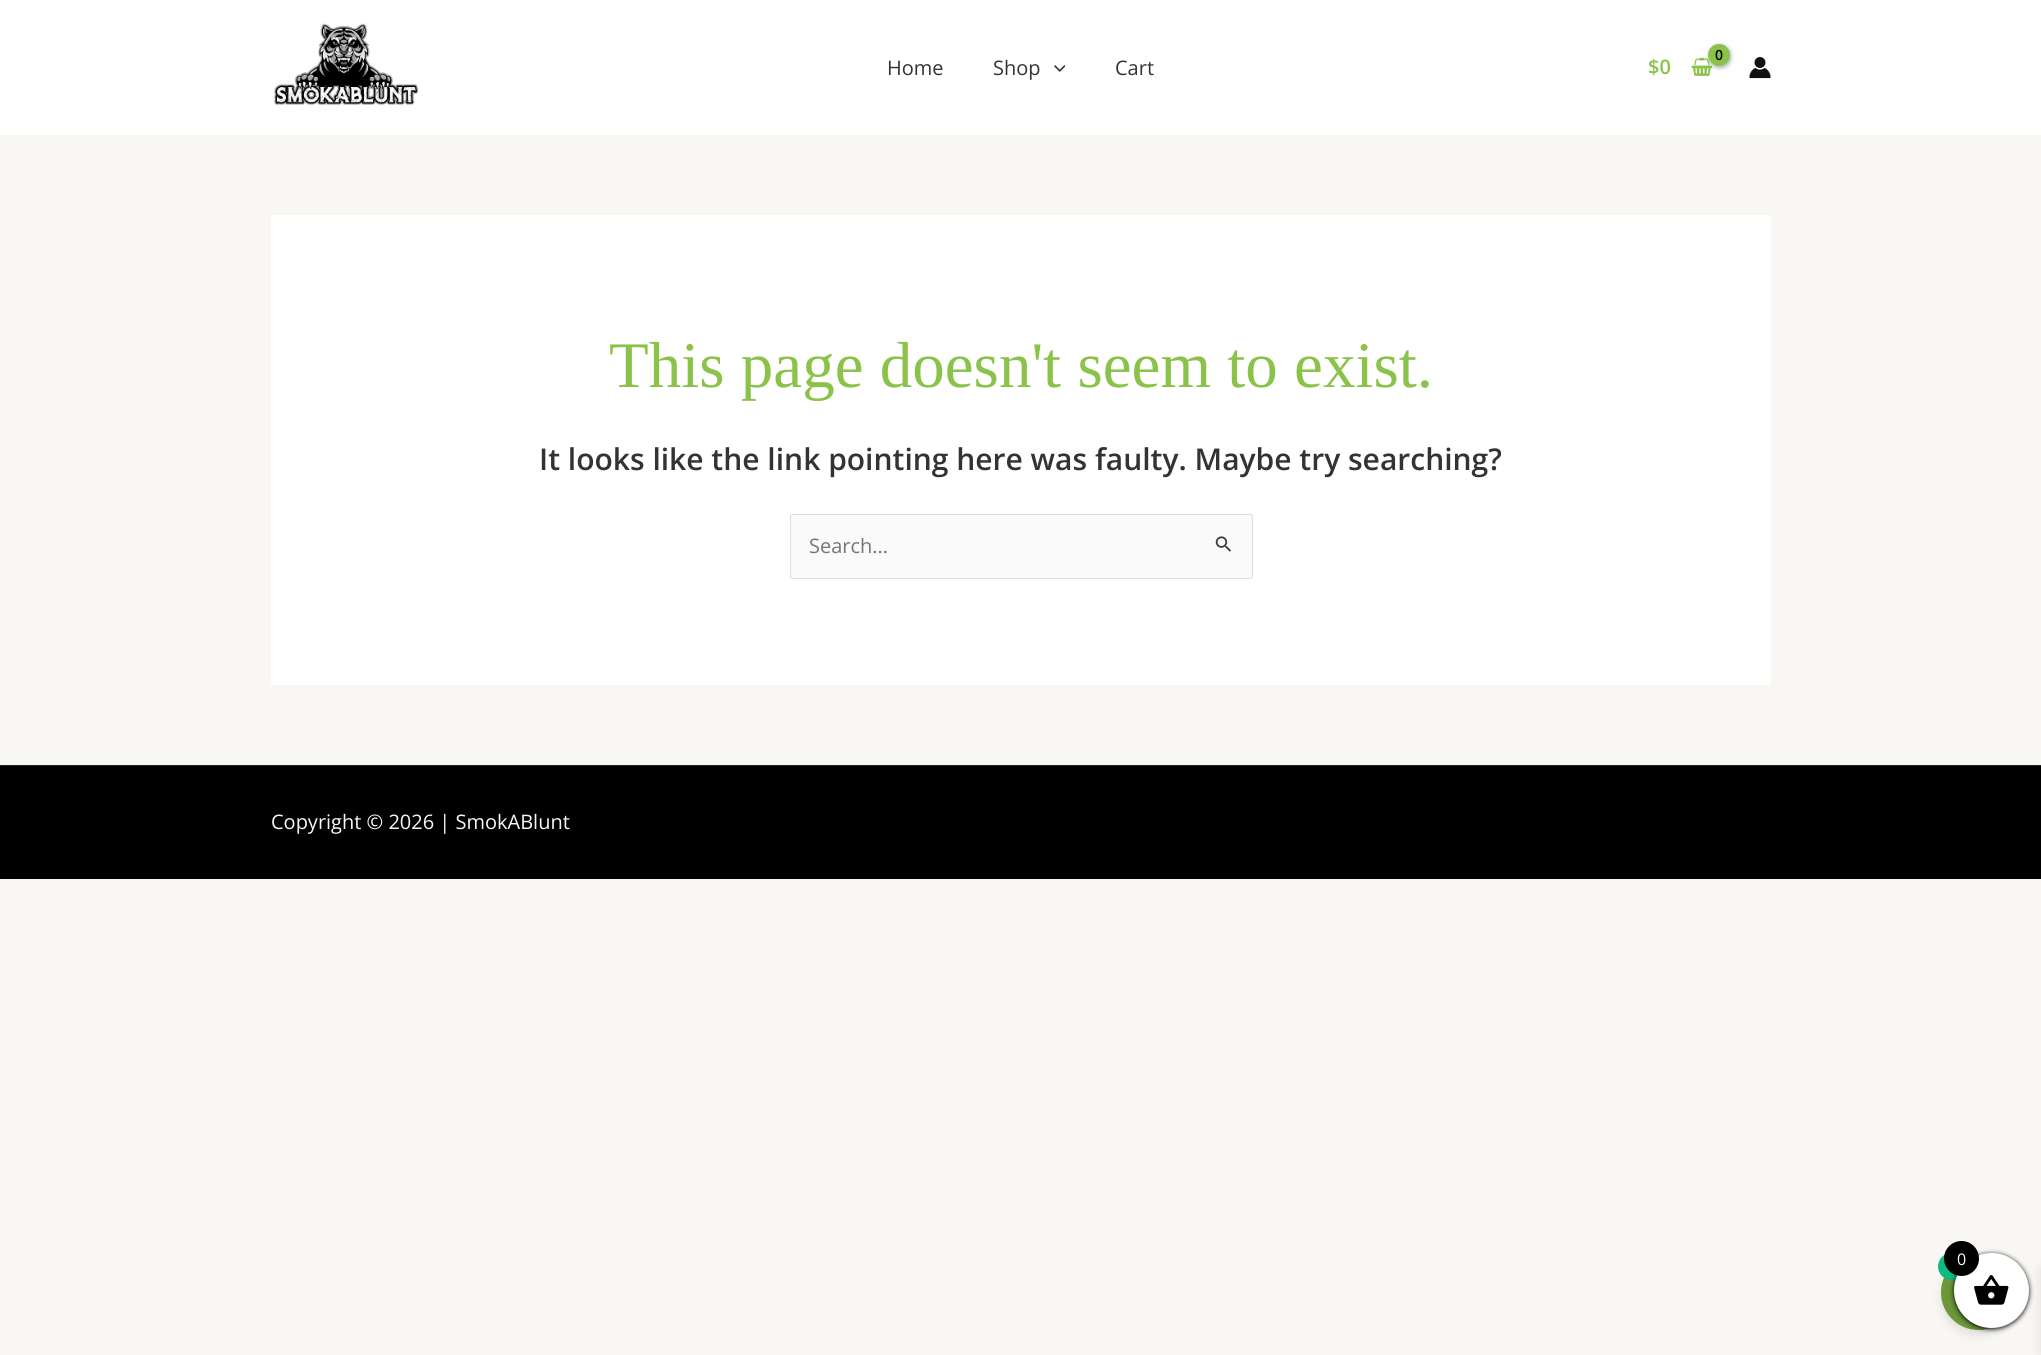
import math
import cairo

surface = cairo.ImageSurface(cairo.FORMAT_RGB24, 2041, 1355)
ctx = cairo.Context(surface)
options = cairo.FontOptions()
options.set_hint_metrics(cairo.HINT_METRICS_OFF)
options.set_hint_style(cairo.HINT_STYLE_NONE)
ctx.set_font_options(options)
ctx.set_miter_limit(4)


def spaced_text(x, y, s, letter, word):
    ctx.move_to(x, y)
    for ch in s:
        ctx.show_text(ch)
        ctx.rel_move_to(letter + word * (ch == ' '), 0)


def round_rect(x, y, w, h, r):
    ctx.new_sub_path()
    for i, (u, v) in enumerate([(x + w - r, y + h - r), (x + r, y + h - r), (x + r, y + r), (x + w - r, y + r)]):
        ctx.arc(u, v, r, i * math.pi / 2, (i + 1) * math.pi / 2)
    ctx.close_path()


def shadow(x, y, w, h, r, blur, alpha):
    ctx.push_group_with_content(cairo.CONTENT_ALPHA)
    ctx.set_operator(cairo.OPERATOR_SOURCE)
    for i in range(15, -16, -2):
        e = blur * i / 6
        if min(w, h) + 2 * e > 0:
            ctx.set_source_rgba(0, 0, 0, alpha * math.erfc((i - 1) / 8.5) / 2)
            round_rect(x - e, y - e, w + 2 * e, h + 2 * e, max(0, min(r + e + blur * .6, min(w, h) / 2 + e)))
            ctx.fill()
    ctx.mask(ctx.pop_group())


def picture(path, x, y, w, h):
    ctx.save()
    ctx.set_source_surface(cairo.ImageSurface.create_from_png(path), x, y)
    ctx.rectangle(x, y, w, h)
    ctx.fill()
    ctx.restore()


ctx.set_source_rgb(0.973, 0.965, 0.953)
ctx.paint()
ctx.set_source_rgb(1, 1, 1)
ctx.rectangle(0, 0, 2041, 135)
ctx.fill()
picture("img1.png", 274, 23, 145, 82)
ctx.select_font_face("Open Sans")
ctx.set_font_size(20)
ctx.set_source_rgb(0.2, 0.2, 0.2)
ctx.move_to(887, 75)
ctx.show_text("Home")
ctx.move_to(993, 75)
ctx.show_text("Shop")
picture("img2.png", 1054, 65, 11, 7)
ctx.move_to(1115, 75)
ctx.show_text("Cart")
picture("img3.png", 1691, 57, 22, 19)
ctx.set_source_rgb(0, 0, 0)
shadow(1709, 45, 22, 23, 11, 2, 0.3)
ctx.set_source_rgb(0.545, 0.765, 0.29)
ctx.arc(1719, 55, 11, 0, 2 * math.pi)
ctx.fill()
ctx.select_font_face("Open Sans SemiBold")
ctx.set_font_size(14)
ctx.set_source_rgb(0, 0, 0)
spaced_text(1715, 60, "0", -1, 0)
ctx.set_font_size(20)
ctx.set_source_rgb(0.545, 0.765, 0.29)
ctx.move_to(1648, 74)
ctx.show_text("$0")
picture("img4.png", 1749, 57, 22, 22)
ctx.set_source_rgb(1, 1, 1)
ctx.rectangle(271, 215, 1500, 470)
ctx.fill()
ctx.select_font_face("Liberation Serif")
ctx.set_font_size(65)
ctx.set_source_rgb(0.545, 0.765, 0.29)
ctx.move_to(609, 387)
ctx.show_text("This page doesn't seem to exist.")
ctx.select_font_face("Open Sans SemiBold")
ctx.set_font_size(30)
ctx.set_source_rgb(0.2, 0.2, 0.2)
ctx.move_to(539, 470)
ctx.show_text("It looks like the link pointing here was faulty. Maybe try searching?")
ctx.set_source_rgb(0.98, 0.98, 0.98)
round_rect(790.5, 514.5, 462, 64, 2)
ctx.fill_preserve()
ctx.set_source_rgb(0.867, 0.867, 0.867)
ctx.set_line_width(1)
ctx.stroke()
ctx.select_font_face("Open Sans")
ctx.set_font_size(20)
ctx.set_source_rgb(0.459, 0.459, 0.459)
ctx.move_to(809, 553)
ctx.show_text("Search...")
picture("img5.png", 1215, 536, 16, 16)
ctx.set_source_rgb(0, 0, 0)
ctx.rectangle(0, 766, 2041, 113)
ctx.fill()
ctx.set_source_rgb(0.133, 0.133, 0.133)
ctx.rectangle(0, 765, 2041, 1)
ctx.fill()
ctx.set_source_rgb(0.973, 0.965, 0.953)
ctx.move_to(271, 829)
ctx.show_text("Copyright © 2026 | SmokABlunt")
ctx.set_source_rgb(0, 0, 0)
shadow(1941, 1260, 75, 75, 37.5, 4.5, 0.1)
ctx.set_source_rgb(0.416, 0.592, 0.224)
ctx.arc(1978.5, 1292.5, 37.5, 0, 2 * math.pi)
ctx.fill()
ctx.set_source_rgb(0.063, 0.725, 0.506)
ctx.arc(1951.5, 1266.5, 13.5, 0, 2 * math.pi)
ctx.fill()
ctx.set_source_rgb(0, 0, 0)
shadow(1954, 1254, 75, 75, 37.5, 2.5, 1)
shadow(2041, 1269, 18, 85, 0, 6, 0.1)
ctx.set_source_rgb(1, 1, 1)
ctx.arc(1991.5, 1290.5, 37.5, 0, 2 * math.pi)
ctx.fill()
picture("img6.png", 1974, 1275, 35, 30)
ctx.set_source_rgb(0, 0, 0)
ctx.arc(1961.5, 1258.5, 17.5, 0, 2 * math.pi)
ctx.fill()
ctx.set_font_size(16)
ctx.set_source_rgb(1, 1, 1)
ctx.move_to(1957, 1265)
ctx.show_text("0")
surface.write_to_png("page.png")
